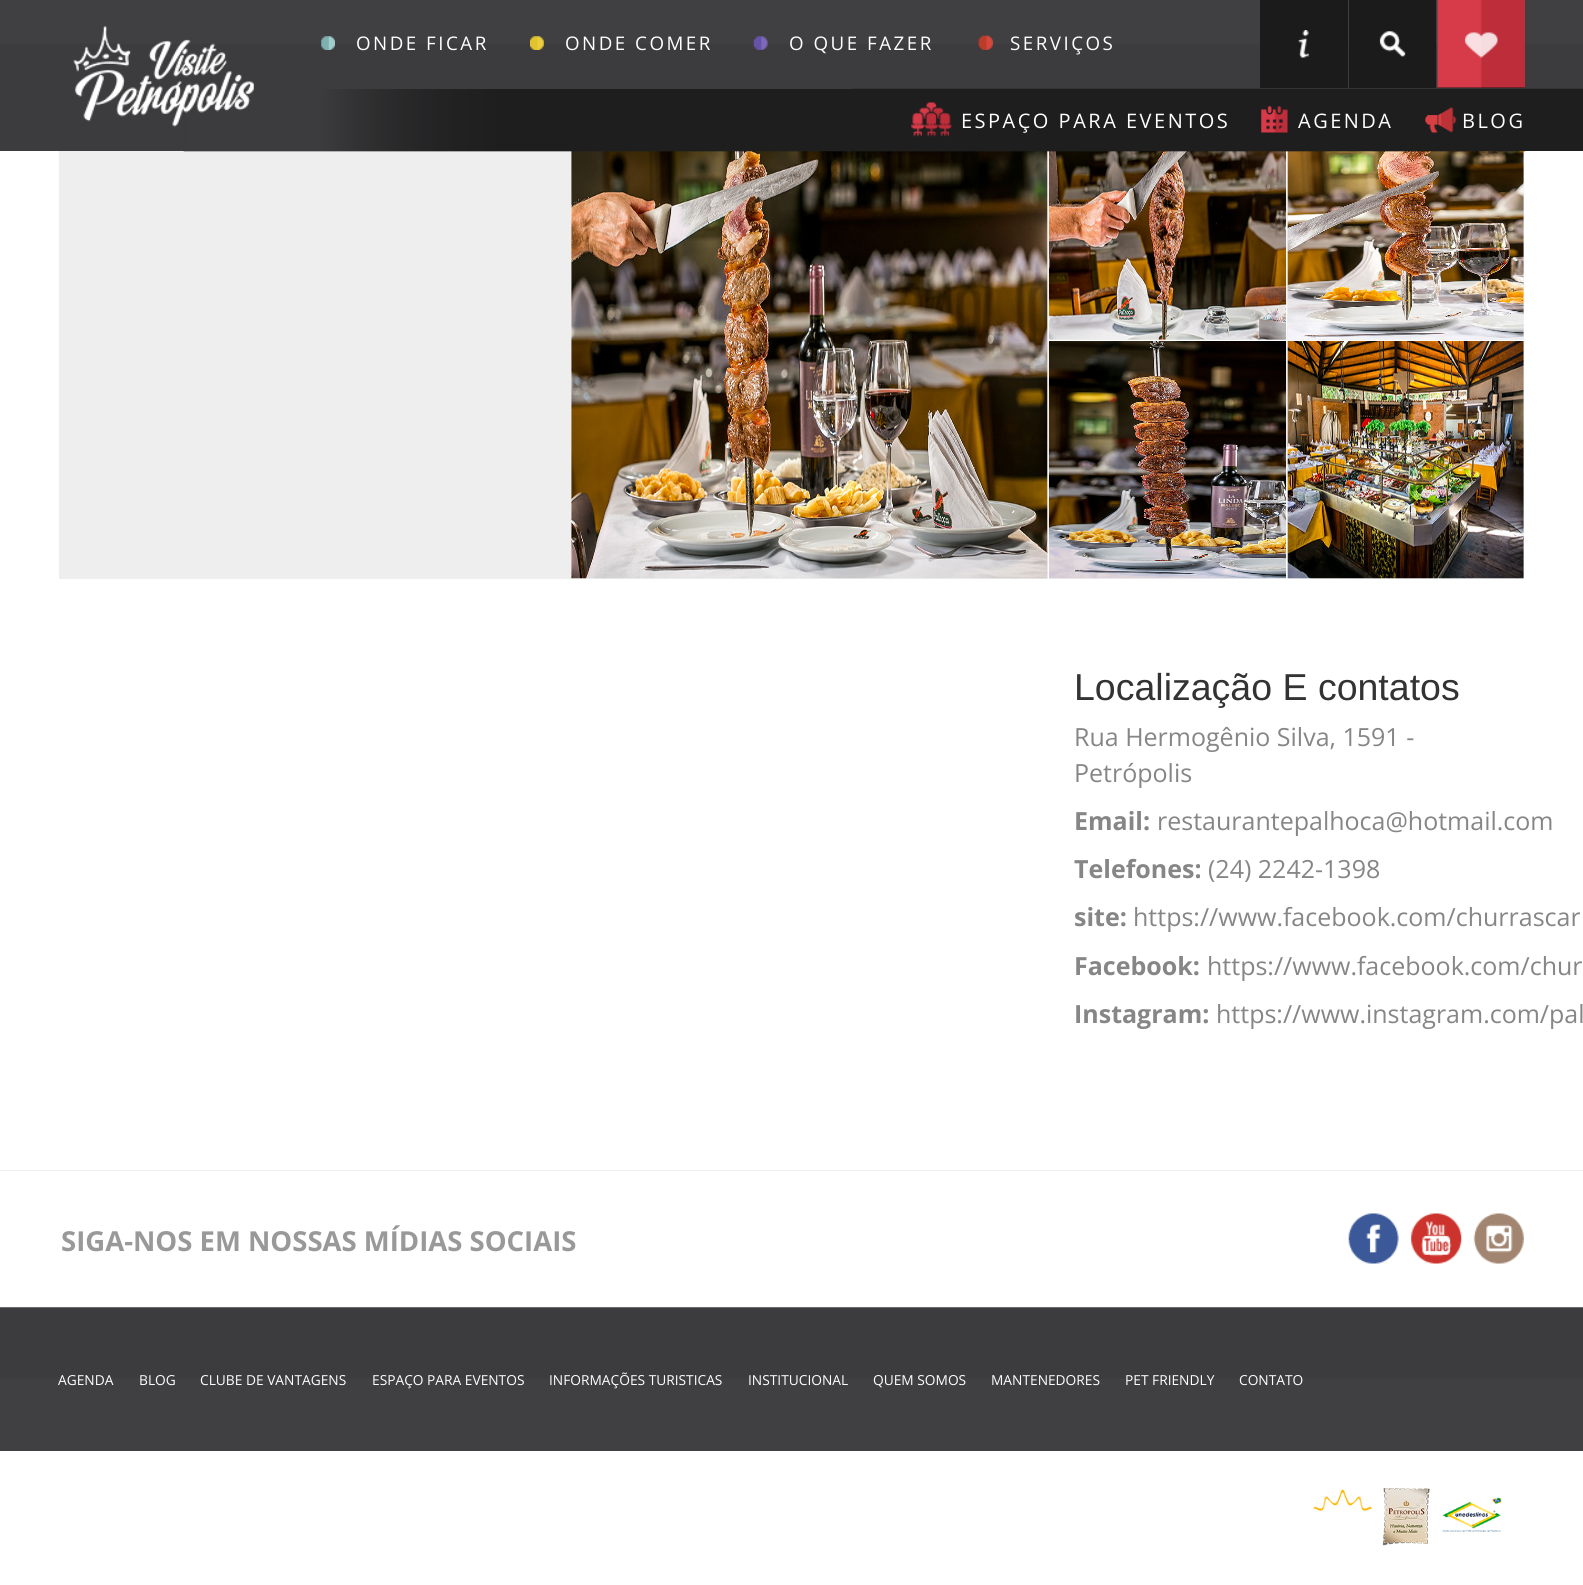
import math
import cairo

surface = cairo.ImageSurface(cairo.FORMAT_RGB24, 1583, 1585)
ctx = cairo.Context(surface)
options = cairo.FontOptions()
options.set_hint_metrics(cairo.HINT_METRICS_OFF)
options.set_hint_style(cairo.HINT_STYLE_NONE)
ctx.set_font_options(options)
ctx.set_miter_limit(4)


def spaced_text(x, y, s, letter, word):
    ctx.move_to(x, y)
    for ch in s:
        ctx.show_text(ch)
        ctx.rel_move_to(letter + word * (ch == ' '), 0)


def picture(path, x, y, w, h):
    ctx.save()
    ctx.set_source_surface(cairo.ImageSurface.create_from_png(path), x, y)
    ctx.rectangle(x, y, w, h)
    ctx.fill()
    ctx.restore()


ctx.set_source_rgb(1, 1, 1)
ctx.paint()
picture("img1.png", 0, 0, 1583, 151)
ctx.set_source_rgb(0.933, 0.933, 0.933)
ctx.rectangle(59, 151, 1465, 428)
ctx.fill()
ctx.set_source_rgb(1, 1, 1)
ctx.rectangle(1048, 151, 1, 428)
ctx.fill()
picture("img14.png", 571, 151, 477, 428)
ctx.rectangle(1286, 151, 1, 189)
ctx.fill()
picture("img15.png", 1048, 151, 239, 189)
picture("img16.png", 1287, 151, 237, 189)
picture("img10.png", 183, 89, 1343, 63)
picture("img2.png", 73, 26, 181, 101)
picture("img3.png", 321, 36, 14, 14)
ctx.select_font_face("Open Sans")
ctx.set_font_size(18.75)
spaced_text(356, 50, "ONDE FICAR", 2.5, 0)
picture("img4.png", 530, 36, 14, 14)
spaced_text(565, 50, "ONDE COMER", 2.5, 0)
picture("img5.png", 753, 36, 15, 14)
spaced_text(789, 50, "O QUE FAZER", 2.5, 0)
picture("img6.png", 978, 35, 15, 15)
spaced_text(1010, 50, "SERVIÇOS", 2.5, 0)
ctx.set_source_rgb(0.106, 0.106, 0.11)
ctx.rectangle(1260, 0, 88, 88)
ctx.fill()
picture("img7.png", 1298, 30, 11, 28)
ctx.rectangle(1349, 0, 87, 88)
ctx.fill()
picture("img8.png", 1379, 31, 27, 26)
ctx.rectangle(1438, 87, 87, 1)
ctx.fill()
picture("img9.png", 1437, 0, 88, 88)
picture("img11.png", 911, 102, 41, 35)
ctx.set_font_size(20)
ctx.set_source_rgb(1, 1, 1)
spaced_text(961, 128, "ESPAÇO PARA EVENTOS", 2.5, 0)
picture("img12.png", 1261, 106, 27, 27)
spaced_text(1298, 128, "AGENDA", 2.5, 0)
picture("img13.png", 1425, 107, 32, 26)
spaced_text(1462, 128, "BLOG", 2.5, 0)
ctx.rectangle(1049, 340, 476, 1)
ctx.fill()
ctx.rectangle(1286, 340, 1, 239)
ctx.fill()
picture("img17.png", 1048, 341, 239, 238)
picture("img18.png", 1287, 341, 237, 238)
ctx.select_font_face("Liberation Sans")
ctx.set_font_size(37.5)
ctx.set_source_rgb(0.2, 0.2, 0.2)
ctx.move_to(1074, 700)
ctx.show_text("Localização E contatos")
ctx.select_font_face("Open Sans")
ctx.set_font_size(25)
ctx.set_source_rgb(0.525, 0.525, 0.525)
ctx.move_to(1074, 746)
ctx.show_text("Rua Hermogênio Silva, 1591 -")
ctx.move_to(1074, 782)
ctx.show_text("Petrópolis")
ctx.select_font_face("Open Sans", cairo.FONT_SLANT_NORMAL, cairo.FONT_WEIGHT_BOLD)
ctx.move_to(1074, 830)
ctx.show_text("Email:")
ctx.select_font_face("Open Sans")
ctx.move_to(1157, 830)
ctx.show_text("restaurantepalhoca@hotmail.com")
ctx.select_font_face("Open Sans", cairo.FONT_SLANT_NORMAL, cairo.FONT_WEIGHT_BOLD)
ctx.move_to(1074, 878)
ctx.show_text("Telefones:")
ctx.select_font_face("Open Sans")
ctx.move_to(1208, 878)
ctx.show_text("(24) 2242-1398")
ctx.select_font_face("Open Sans", cairo.FONT_SLANT_NORMAL, cairo.FONT_WEIGHT_BOLD)
ctx.move_to(1074, 926)
ctx.show_text("site:")
ctx.select_font_face("Open Sans")
ctx.move_to(1133, 926)
ctx.show_text("https://www.facebook.com/churrascar")
ctx.select_font_face("Open Sans", cairo.FONT_SLANT_NORMAL, cairo.FONT_WEIGHT_BOLD)
ctx.move_to(1074, 975)
ctx.show_text("Facebook:")
ctx.select_font_face("Open Sans")
ctx.move_to(1207, 975)
ctx.show_text("https://www.facebook.com/chur")
ctx.select_font_face("Open Sans", cairo.FONT_SLANT_NORMAL, cairo.FONT_WEIGHT_BOLD)
ctx.move_to(1074, 1023)
ctx.show_text("Instagram:")
ctx.select_font_face("Open Sans")
ctx.move_to(1216, 1023)
ctx.show_text("https://www.instagram.com/pal")
ctx.set_source_rgb(0.933, 0.933, 0.933)
ctx.rectangle(0, 1170, 1583, 1)
ctx.fill()
ctx.select_font_face("Open Sans", cairo.FONT_SLANT_NORMAL, cairo.FONT_WEIGHT_BOLD)
ctx.set_font_size(27.5)
ctx.set_source_rgb(0.6, 0.6, 0.6)
ctx.move_to(61, 1251)
ctx.show_text("SIGA-NOS EM NOSSAS MÍDIAS SOCIAIS")
picture("img19.png", 1348, 1213, 51, 51)
picture("img20.png", 1411, 1213, 51, 51)
picture("img21.png", 1473, 1213, 51, 51)
picture("img22.png", 0, 1307, 1583, 144)
ctx.select_font_face("Open Sans")
ctx.set_font_size(13.75)
ctx.set_source_rgb(1, 1, 1)
ctx.move_to(58, 1385)
ctx.show_text("AGENDA")
ctx.move_to(139, 1385)
ctx.show_text("BLOG")
ctx.move_to(200, 1385)
ctx.show_text("CLUBE DE VANTAGENS")
ctx.move_to(372, 1385)
ctx.show_text("ESPAÇO PARA EVENTOS")
ctx.move_to(549, 1385)
ctx.show_text("INFORMAÇÕES TURISTICAS")
ctx.move_to(748, 1385)
ctx.show_text("INSTITUCIONAL")
ctx.move_to(873, 1385)
ctx.show_text("QUEM SOMOS")
ctx.move_to(991, 1385)
ctx.show_text("MANTENEDORES")
ctx.move_to(1125, 1385)
ctx.show_text("PET FRIENDLY")
ctx.move_to(1239, 1385)
ctx.show_text("CONTATO")
picture("img23.png", 1313, 1489, 59, 22)
picture("img24.png", 1382, 1488, 48, 58)
picture("img25.png", 1442, 1497, 60, 35)
surface.write_to_png("page.png")
